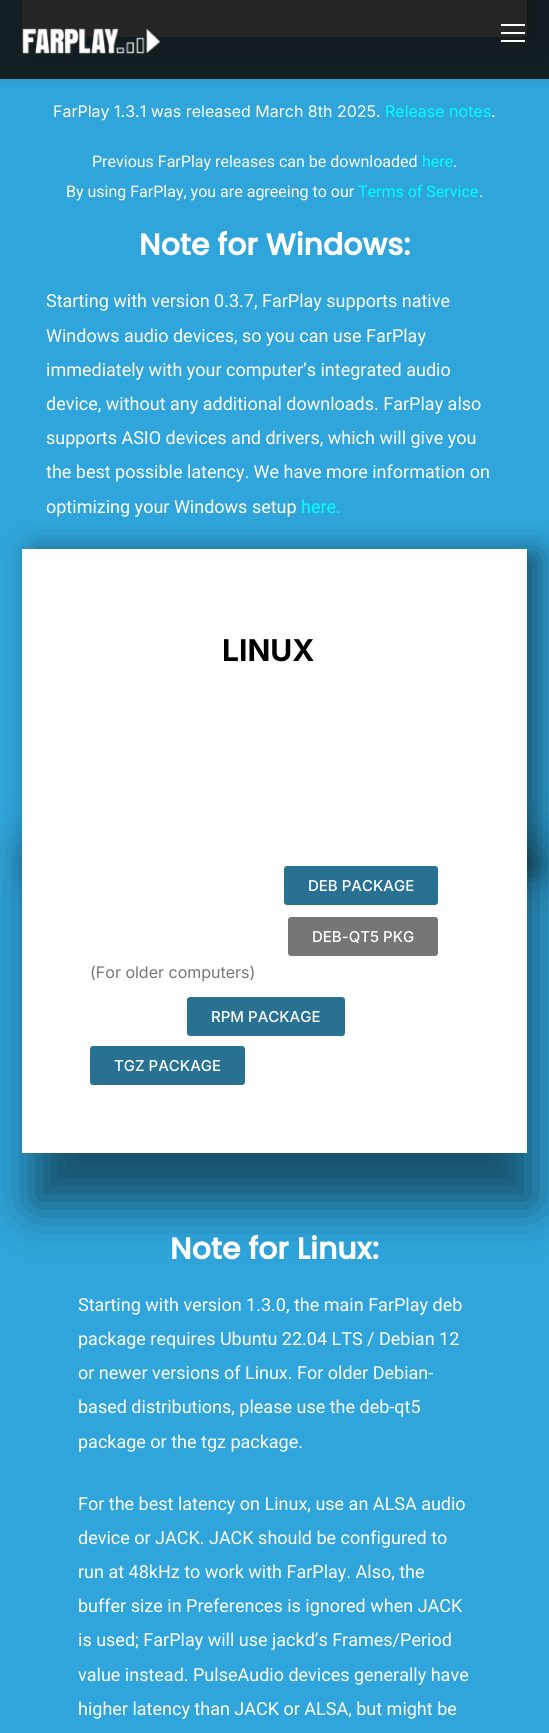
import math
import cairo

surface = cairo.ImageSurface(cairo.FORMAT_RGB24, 549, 1733)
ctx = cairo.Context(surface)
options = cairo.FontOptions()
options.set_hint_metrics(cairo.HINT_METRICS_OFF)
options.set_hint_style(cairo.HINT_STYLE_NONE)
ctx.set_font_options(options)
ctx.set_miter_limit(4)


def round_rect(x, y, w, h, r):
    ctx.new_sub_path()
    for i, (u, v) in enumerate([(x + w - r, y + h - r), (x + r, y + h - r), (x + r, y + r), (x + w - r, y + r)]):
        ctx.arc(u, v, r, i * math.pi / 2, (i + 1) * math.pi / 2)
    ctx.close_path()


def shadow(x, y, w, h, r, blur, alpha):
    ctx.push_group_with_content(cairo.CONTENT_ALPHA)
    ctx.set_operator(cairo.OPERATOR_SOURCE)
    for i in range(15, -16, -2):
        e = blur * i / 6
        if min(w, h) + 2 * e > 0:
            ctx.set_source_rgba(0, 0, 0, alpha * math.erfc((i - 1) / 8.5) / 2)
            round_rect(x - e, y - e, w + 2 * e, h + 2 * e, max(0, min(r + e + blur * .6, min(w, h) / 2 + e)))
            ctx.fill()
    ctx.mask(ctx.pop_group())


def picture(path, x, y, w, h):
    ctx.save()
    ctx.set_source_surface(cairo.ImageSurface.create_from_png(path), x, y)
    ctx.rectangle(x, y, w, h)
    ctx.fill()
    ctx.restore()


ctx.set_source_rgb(1, 1, 1)
ctx.paint()
gradient = cairo.LinearGradient(274, -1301, 275, 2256)
gradient.add_color_stop_rgba(0.06, 0, 0.341, 0.678, 1)
gradient.add_color_stop_rgba(0.17, 0.184, 0.647, 0.859, 1)
ctx.set_source(gradient)
ctx.rectangle(0, 0, 549, 1733)
ctx.fill()
ctx.set_source_rgb(0, 0, 0)
shadow(35, -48, 505, 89, 0, 16, 0.5)
ctx.set_source_rgb(0.894, 0.894, 0.894)
ctx.rectangle(22, 0, 505, 37)
ctx.fill()
ctx.save()
ctx.rectangle(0, 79, 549, 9)
ctx.clip()
ctx.set_source_rgb(0, 0, 0)
shadow(-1, -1, 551, 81, 0, 9, 0.1)
ctx.restore()
ctx.set_source_rgba(0.067, 0.067, 0.067, 0.9)
ctx.rectangle(0, 0, 549, 79)
ctx.fill()
picture("img1.png", 22, 28, 139, 26)
ctx.set_source_rgb(1, 1, 1)
ctx.rectangle(501, 24, 24, 2)
ctx.fill()
ctx.rectangle(501, 32, 24, 2)
ctx.fill()
ctx.rectangle(501, 40, 24, 2)
ctx.fill()
ctx.select_font_face("Inter")
ctx.set_font_size(16)
ctx.move_to(53, 117)
ctx.show_text("FarPlay 1.3.1 was released March 8th 2025.")
ctx.set_source_rgb(0, 1, 1)
ctx.move_to(385, 117)
ctx.show_text("Release notes")
ctx.set_source_rgb(1, 1, 1)
ctx.move_to(491, 117)
ctx.show_text(".")
ctx.select_font_face("Roboto")
ctx.move_to(92, 167)
ctx.show_text("Previous FarPlay releases can be downloaded")
ctx.set_source_rgb(0, 1, 1)
ctx.move_to(422, 167)
ctx.show_text("here")
ctx.set_source_rgb(1, 1, 1)
ctx.move_to(453, 167)
ctx.show_text(".")
ctx.move_to(66, 197)
ctx.show_text("By using FarPlay, you are agreeing to our")
ctx.set_source_rgb(0, 1, 1)
ctx.move_to(358, 197)
ctx.show_text("Terms of Service")
ctx.set_source_rgb(1, 1, 1)
ctx.move_to(479, 197)
ctx.show_text(".")
ctx.select_font_face("Poppins", cairo.FONT_SLANT_NORMAL, cairo.FONT_WEIGHT_BOLD)
ctx.set_font_size(30)
ctx.move_to(139, 255)
ctx.show_text("Note for Windows:")
ctx.select_font_face("Roboto")
ctx.set_font_size(18)
ctx.move_to(46, 307)
ctx.show_text("Starting with version 0.3.7, FarPlay supports native")
ctx.move_to(46, 342)
ctx.show_text("Windows audio devices, so you can use FarPlay")
ctx.move_to(46, 376)
ctx.show_text("immediately with your computer’s integrated audio")
ctx.move_to(46, 410)
ctx.show_text("device, without any additional downloads. FarPlay also")
ctx.move_to(46, 444)
ctx.show_text("supports ASIO devices and drivers, which will give you")
ctx.move_to(46, 478)
ctx.show_text("the best possible latency. We have more information on")
ctx.move_to(46, 513)
ctx.show_text("optimizing your Windows setup")
ctx.set_source_rgb(0, 1, 1)
ctx.move_to(301, 513)
ctx.show_text("here.")
ctx.set_source_rgb(0, 0, 0)
shadow(35, 553, 505, 322, 0, 16, 0.5)
ctx.set_source_rgb(1, 1, 1)
ctx.rectangle(22, 549, 505, 248)
ctx.fill()
ctx.select_font_face("Inter", cairo.FONT_SLANT_NORMAL, cairo.FONT_WEIGHT_BOLD)
ctx.set_font_size(30)
ctx.set_source_rgb(0, 0, 0)
ctx.move_to(222, 661)
ctx.show_text("LINUX")
ctx.set_source_rgb(0, 0, 0)
shadow(31, 850, 505, 356, 0, 24, 0.5)
ctx.set_source_rgb(1, 1, 1)
ctx.rectangle(22, 797, 505, 356)
ctx.fill()
ctx.set_source_rgb(0.157, 0.443, 0.576)
round_rect(284, 866, 154, 39, 3)
ctx.fill()
ctx.select_font_face("Inter Medium")
ctx.set_font_size(15)
ctx.set_source_rgb(1, 1, 1)
ctx.move_to(308, 891)
ctx.show_text("DEB PACKAGE")
ctx.set_source_rgb(0.463, 0.463, 0.463)
round_rect(288, 917, 150, 39, 3)
ctx.fill()
ctx.set_source_rgb(1, 1, 1)
ctx.move_to(312, 942)
ctx.show_text("DEB-QT5 PKG")
ctx.select_font_face("Inter")
ctx.set_font_size(16)
ctx.set_source_rgb(0.463, 0.463, 0.463)
ctx.move_to(90, 978)
ctx.show_text("(For older computers)")
ctx.set_source_rgb(0.157, 0.443, 0.576)
round_rect(187, 997, 158, 39, 3)
ctx.fill()
ctx.select_font_face("Inter Medium")
ctx.set_font_size(15)
ctx.set_source_rgb(1, 1, 1)
ctx.move_to(211, 1022)
ctx.show_text("RPM PACKAGE")
ctx.set_source_rgb(0.157, 0.443, 0.576)
round_rect(90, 1046, 155, 39, 3)
ctx.fill()
ctx.set_source_rgb(1, 1, 1)
ctx.move_to(114, 1071)
ctx.show_text("TGZ PACKAGE")
ctx.select_font_face("Poppins", cairo.FONT_SLANT_NORMAL, cairo.FONT_WEIGHT_BOLD)
ctx.set_font_size(30)
ctx.move_to(170, 1259)
ctx.show_text("Note for Linux:")
ctx.select_font_face("Roboto")
ctx.set_font_size(18)
ctx.move_to(78, 1311)
ctx.show_text("Starting with version 1.3.0, the main FarPlay deb")
ctx.move_to(78, 1345)
ctx.show_text("package requires Ubuntu 22.04 LTS / Debian 12")
ctx.move_to(78, 1379)
ctx.show_text("or newer versions of Linux. For older Debian-")
ctx.move_to(78, 1413)
ctx.show_text("based distributions, please use the deb-qt5")
ctx.move_to(78, 1448)
ctx.show_text("package or the tgz package.")
ctx.move_to(78, 1510)
ctx.show_text("For the best latency on Linux, use an ALSA audio")
ctx.move_to(78, 1544)
ctx.show_text("device or JACK. JACK should be configured to")
ctx.move_to(78, 1578)
ctx.show_text("run at 48kHz to work with FarPlay. Also, the")
ctx.move_to(78, 1612)
ctx.show_text("buffer size in Preferences is ignored when JACK")
ctx.move_to(78, 1646)
ctx.show_text("is used; FarPlay will use jackd’s Frames/Period")
ctx.move_to(78, 1681)
ctx.show_text("value instead. PulseAudio devices generally have")
ctx.move_to(78, 1715)
ctx.show_text("higher latency than JACK or ALSA, but might be")
surface.write_to_png("page.png")
